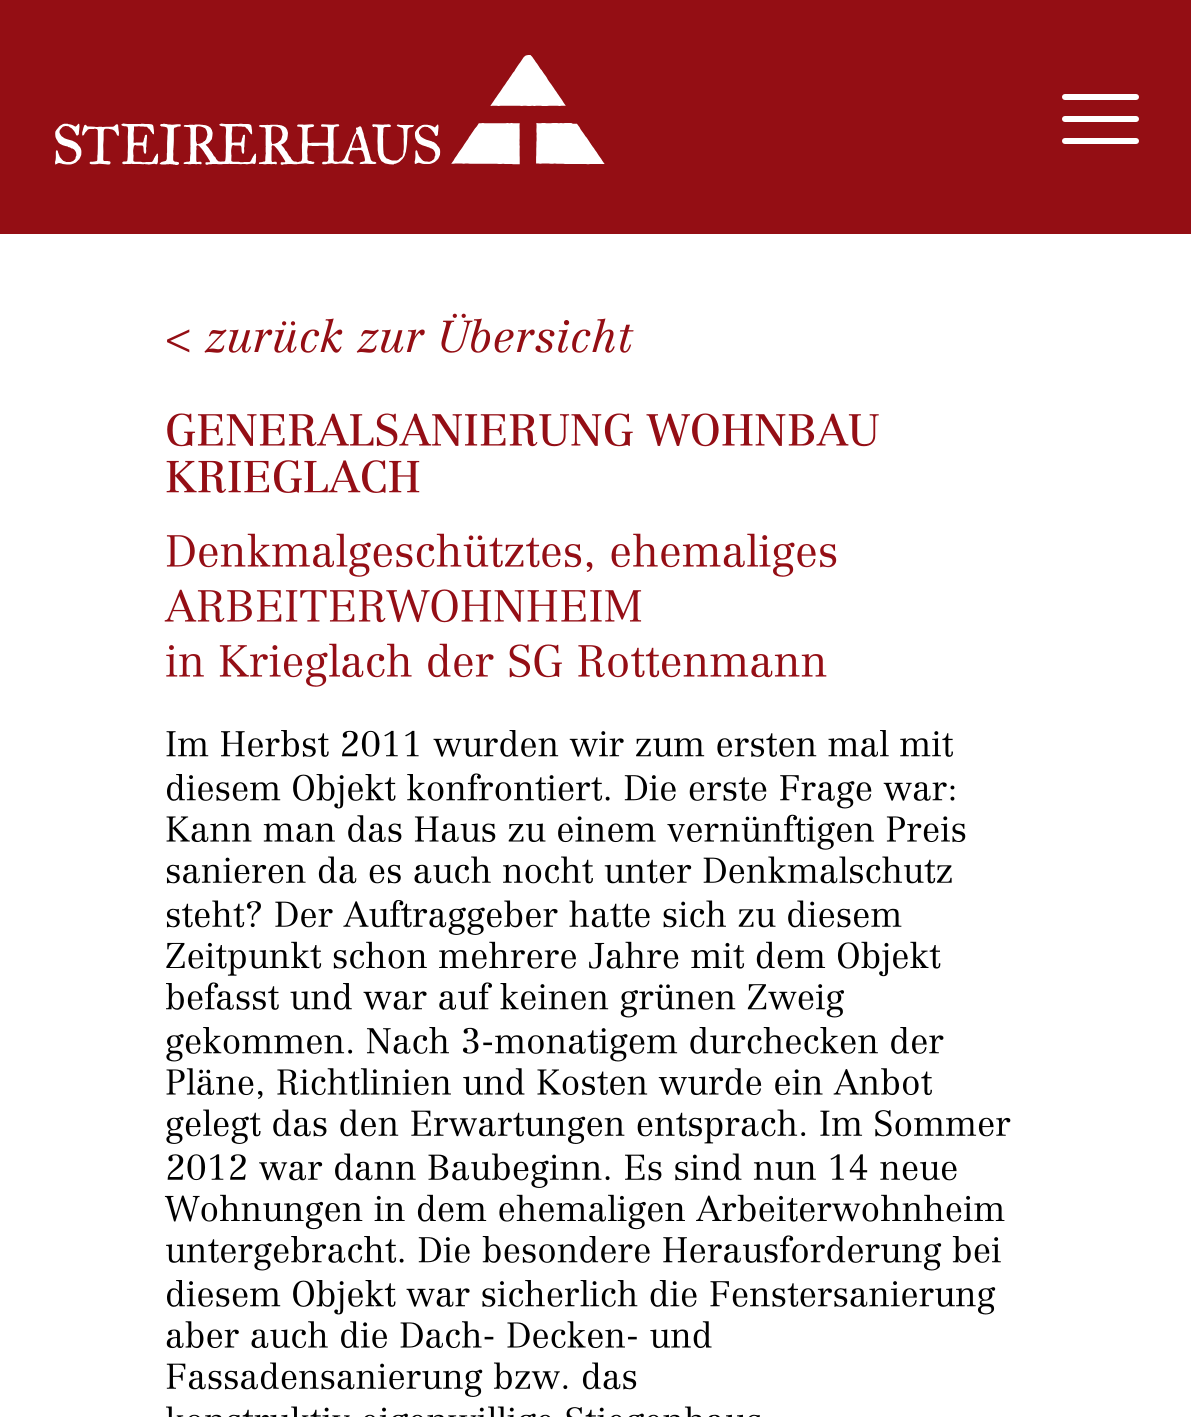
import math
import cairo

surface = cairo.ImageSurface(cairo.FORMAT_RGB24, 1191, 1417)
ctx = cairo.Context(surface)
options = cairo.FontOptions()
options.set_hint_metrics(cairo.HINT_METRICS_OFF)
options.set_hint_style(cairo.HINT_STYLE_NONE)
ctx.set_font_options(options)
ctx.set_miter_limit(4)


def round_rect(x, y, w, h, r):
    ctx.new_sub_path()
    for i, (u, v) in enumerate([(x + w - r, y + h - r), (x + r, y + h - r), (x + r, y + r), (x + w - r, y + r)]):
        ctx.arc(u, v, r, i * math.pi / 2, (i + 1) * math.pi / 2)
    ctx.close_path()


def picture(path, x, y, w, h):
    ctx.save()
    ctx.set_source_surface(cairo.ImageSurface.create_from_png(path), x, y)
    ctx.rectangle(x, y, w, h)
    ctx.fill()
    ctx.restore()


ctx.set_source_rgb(1, 1, 1)
ctx.paint()
ctx.set_source_rgb(0.58, 0.055, 0.082)
ctx.rectangle(0, 0, 1191, 234)
ctx.fill()
picture("img1.png", 55, 55, 550, 110)
ctx.set_source_rgb(1, 1, 1)
round_rect(1062, 94, 77, 6, 3)
ctx.fill()
round_rect(1062, 116, 77, 6, 3)
ctx.fill()
round_rect(1062, 138, 77, 6, 3)
ctx.fill()
ctx.select_font_face("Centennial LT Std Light", cairo.FONT_SLANT_ITALIC)
ctx.set_font_size(44)
ctx.set_source_rgb(0.58, 0.055, 0.082)
ctx.move_to(165, 352)
ctx.show_text("< zurück zur Übersicht")
picture("img2.png", 167, 413, 712, 34)
picture("img3.png", 166, 460, 254, 33)
picture("img4.png", 166, 533, 671, 44)
picture("img5.png", 164, 589, 478, 34)
picture("img6.png", 166, 643, 661, 44)
picture("img7.png", 166, 730, 787, 27)
picture("img8.png", 167, 773, 788, 36)
picture("img9.png", 166, 814, 800, 36)
picture("img10.png", 166, 856, 786, 28)
picture("img11.png", 166, 900, 736, 35)
picture("img12.png", 166, 941, 775, 36)
picture("img13.png", 166, 982, 678, 36)
picture("img14.png", 166, 1027, 778, 35)
picture("img15.png", 166, 1068, 766, 31)
picture("img16.png", 166, 1109, 845, 35)
picture("img17.png", 167, 1153, 790, 35)
picture("img18.png", 164, 1194, 841, 36)
picture("img19.png", 166, 1235, 835, 36)
picture("img20.png", 167, 1280, 829, 35)
picture("img21.png", 166, 1321, 546, 28)
picture("img22.png", 166, 1362, 471, 35)
picture("img23.png", 166, 1406, 594, 11)
surface.write_to_png("page.png")
